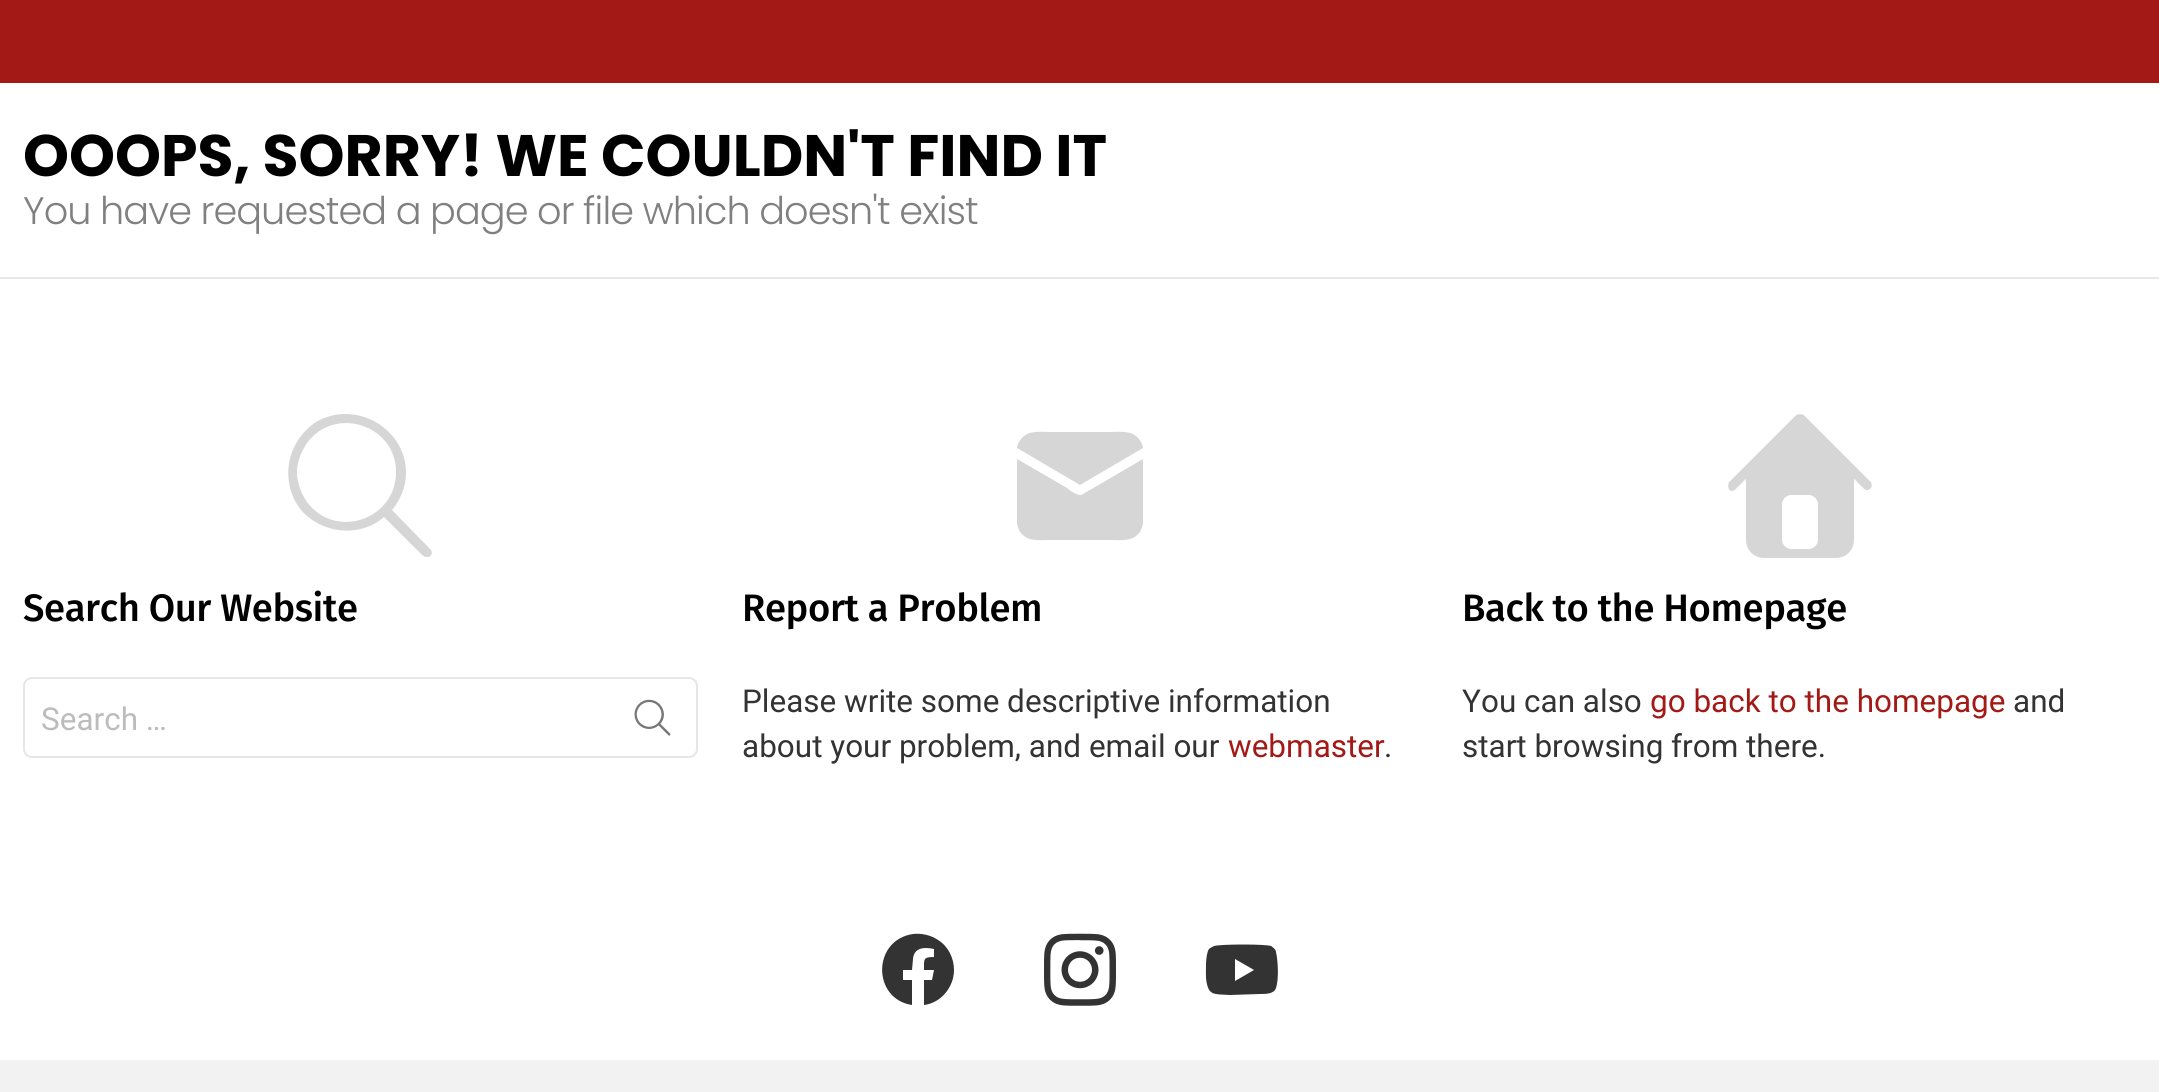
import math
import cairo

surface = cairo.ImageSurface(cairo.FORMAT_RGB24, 2159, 1092)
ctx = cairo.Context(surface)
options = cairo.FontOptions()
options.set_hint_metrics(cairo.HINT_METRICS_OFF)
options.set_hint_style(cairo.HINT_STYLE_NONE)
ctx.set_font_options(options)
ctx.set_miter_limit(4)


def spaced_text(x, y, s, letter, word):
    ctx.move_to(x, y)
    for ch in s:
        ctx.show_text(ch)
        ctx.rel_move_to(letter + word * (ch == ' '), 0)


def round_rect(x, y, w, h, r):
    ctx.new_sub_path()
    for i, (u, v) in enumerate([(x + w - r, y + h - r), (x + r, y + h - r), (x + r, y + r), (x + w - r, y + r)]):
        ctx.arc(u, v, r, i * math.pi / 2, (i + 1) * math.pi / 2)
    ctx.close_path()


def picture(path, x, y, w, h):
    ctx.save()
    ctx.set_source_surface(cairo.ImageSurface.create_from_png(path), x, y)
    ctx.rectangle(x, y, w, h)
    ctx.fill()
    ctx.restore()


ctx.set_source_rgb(1, 1, 1)
ctx.paint()
ctx.set_source_rgb(0.639, 0.098, 0.086)
ctx.rectangle(0, 0, 2159, 83)
ctx.fill()
ctx.select_font_face("Poppins", cairo.FONT_SLANT_NORMAL, cairo.FONT_WEIGHT_BOLD)
ctx.set_font_size(58.5)
ctx.set_source_rgb(0, 0, 0)
ctx.move_to(23, 176)
ctx.show_text("OOOPS, SORRY! WE COULDN'T FIND IT")
ctx.select_font_face("Poppins Light")
ctx.set_font_size(38.25)
ctx.set_source_rgb(0.502, 0.502, 0.502)
spaced_text(23, 224, "You have requested a page or file which doesn't exist", -0.95, 0)
ctx.set_source_rgb(0.902, 0.902, 0.902)
ctx.rectangle(0, 277, 2159, 2)
ctx.fill()
ctx.set_source_rgb(0.839, 0.839, 0.839)
ctx.new_path()
ctx.move_to(431, 550)
ctx.line_to(392, 510)
ctx.curve_to(398, 503, 403, 493, 405, 483)
ctx.curve_to(414, 434, 359, 397, 316, 422)
ctx.curve_to(304, 430, 295, 442, 291, 455)
ctx.curve_to(285, 474, 289, 495, 301, 510)
ctx.curve_to(322, 534, 360, 538, 384, 517)
ctx.line_to(417, 550)
ctx.curve_to(419, 551, 423, 558, 428, 557)
ctx.curve_to(431, 557, 433, 553, 431, 550)
ctx.close_path()
ctx.move_to(297, 472)
ctx.curve_to(297, 462, 301, 452, 307, 443)
ctx.curve_to(335, 405, 396, 425, 396, 472)
ctx.curve_to(396, 520, 335, 540, 307, 502)
ctx.curve_to(301, 493, 297, 483, 297, 472)
ctx.close_path()
ctx.fill()
ctx.select_font_face("Fira Sans Medium")
ctx.set_source_rgb(0, 0, 0)
spaced_text(23, 621, "Search Our Website", -0.4, 0)
round_rect(24, 678, 673, 79, 8)
ctx.set_source_rgb(0.902, 0.902, 0.902)
ctx.stroke()
ctx.select_font_face("Roboto")
ctx.set_font_size(31.5)
ctx.set_source_rgb(0.737, 0.737, 0.737)
ctx.move_to(41, 730)
ctx.show_text("Search …")
picture("img1.png", 634, 699, 37, 37)
ctx.set_source_rgb(0.839, 0.839, 0.839)
ctx.new_path()
ctx.move_to(1080, 485)
ctx.line_to(1143, 448)
ctx.curve_to(1143, 445, 1141, 442, 1139, 439)
ctx.curve_to(1132, 430, 1121, 432, 1110, 432)
ctx.line_to(1050, 432)
ctx.curve_to(1039, 432, 1028, 430, 1021, 439)
ctx.curve_to(1019, 442, 1017, 445, 1017, 448)
ctx.close_path()
ctx.move_to(1083, 494)
ctx.curve_to(1079, 498, 1068, 489, 1067, 488)
ctx.line_to(1017, 459)
ctx.line_to(1017, 524)
ctx.curve_to(1018, 528, 1019, 531, 1021, 533)
ctx.curve_to(1028, 542, 1040, 540, 1050, 540)
ctx.line_to(1110, 540)
ctx.curve_to(1120, 540, 1132, 542, 1139, 533)
ctx.curve_to(1141, 531, 1142, 528, 1143, 524)
ctx.line_to(1143, 459)
ctx.close_path()
ctx.fill()
ctx.select_font_face("Fira Sans Medium")
ctx.set_font_size(38.25)
ctx.set_source_rgb(0, 0, 0)
spaced_text(742, 621, "Report a Problem", -0.4, 0)
ctx.select_font_face("Roboto")
ctx.set_font_size(31.5)
ctx.set_source_rgb(0.2, 0.2, 0.2)
ctx.move_to(742, 712)
ctx.show_text("Please write some descriptive information")
ctx.move_to(742, 757)
ctx.show_text("about your problem, and email our")
ctx.set_source_rgb(0.639, 0.098, 0.086)
ctx.move_to(1228, 757)
ctx.show_text("webmaster")
ctx.set_source_rgb(0.2, 0.2, 0.2)
ctx.move_to(1384, 757)
ctx.show_text(".")
picture("img2.png", 1728, 414, 144, 144)
ctx.select_font_face("Fira Sans Medium")
ctx.set_font_size(38.25)
ctx.set_source_rgb(0, 0, 0)
spaced_text(1462, 621, "Back to the Homepage", -0.4, 0)
ctx.select_font_face("Roboto")
ctx.set_font_size(31.5)
ctx.set_source_rgb(0.2, 0.2, 0.2)
ctx.move_to(1462, 712)
ctx.show_text("You can also")
ctx.set_source_rgb(0.639, 0.098, 0.086)
ctx.move_to(1650, 712)
ctx.show_text("go back to the homepage")
ctx.set_source_rgb(0.2, 0.2, 0.2)
ctx.move_to(2013, 712)
ctx.show_text("and")
ctx.move_to(1462, 757)
ctx.show_text("start browsing from there.")
ctx.new_path()
ctx.move_to(954, 970)
ctx.curve_to(954, 958, 948, 946, 938, 940)
ctx.curve_to(931, 935, 921, 933, 913, 934)
ctx.curve_to(872, 940, 872, 999, 912, 1005)
ctx.line_to(912, 980)
ctx.line_to(903, 980)
ctx.line_to(903, 970)
ctx.line_to(912, 970)
ctx.line_to(913, 959)
ctx.curve_to(914, 947, 925, 947, 934, 949)
ctx.line_to(934, 957)
ctx.curve_to(923, 957, 924, 959, 924, 970)
ctx.line_to(934, 970)
ctx.line_to(932, 980)
ctx.line_to(924, 980)
ctx.line_to(924, 1005)
ctx.curve_to(941, 1003, 954, 987, 954, 970)
ctx.close_path()
ctx.fill()
picture("img3.png", 1044, 933, 72, 73)
ctx.new_path()
ctx.move_to(1276, 952)
ctx.curve_to(1276, 950, 1274, 948, 1271, 946)
ctx.curve_to(1265, 944, 1222, 944, 1214, 946)
ctx.curve_to(1212, 947, 1210, 948, 1209, 949)
ctx.curve_to(1205, 955, 1206, 972, 1206, 978)
ctx.curve_to(1208, 996, 1213, 994, 1230, 995)
ctx.line_to(1260, 994)
ctx.curve_to(1266, 994, 1274, 994, 1276, 988)
ctx.curve_to(1279, 979, 1278, 961, 1276, 952)
ctx.close_path()
ctx.move_to(1235, 981)
ctx.line_to(1235, 959)
ctx.line_to(1254, 970)
ctx.close_path()
ctx.fill()
ctx.set_source_rgb(0.949, 0.949, 0.949)
ctx.rectangle(0, 1060, 2159, 32)
ctx.fill()
surface.write_to_png("page.png")
